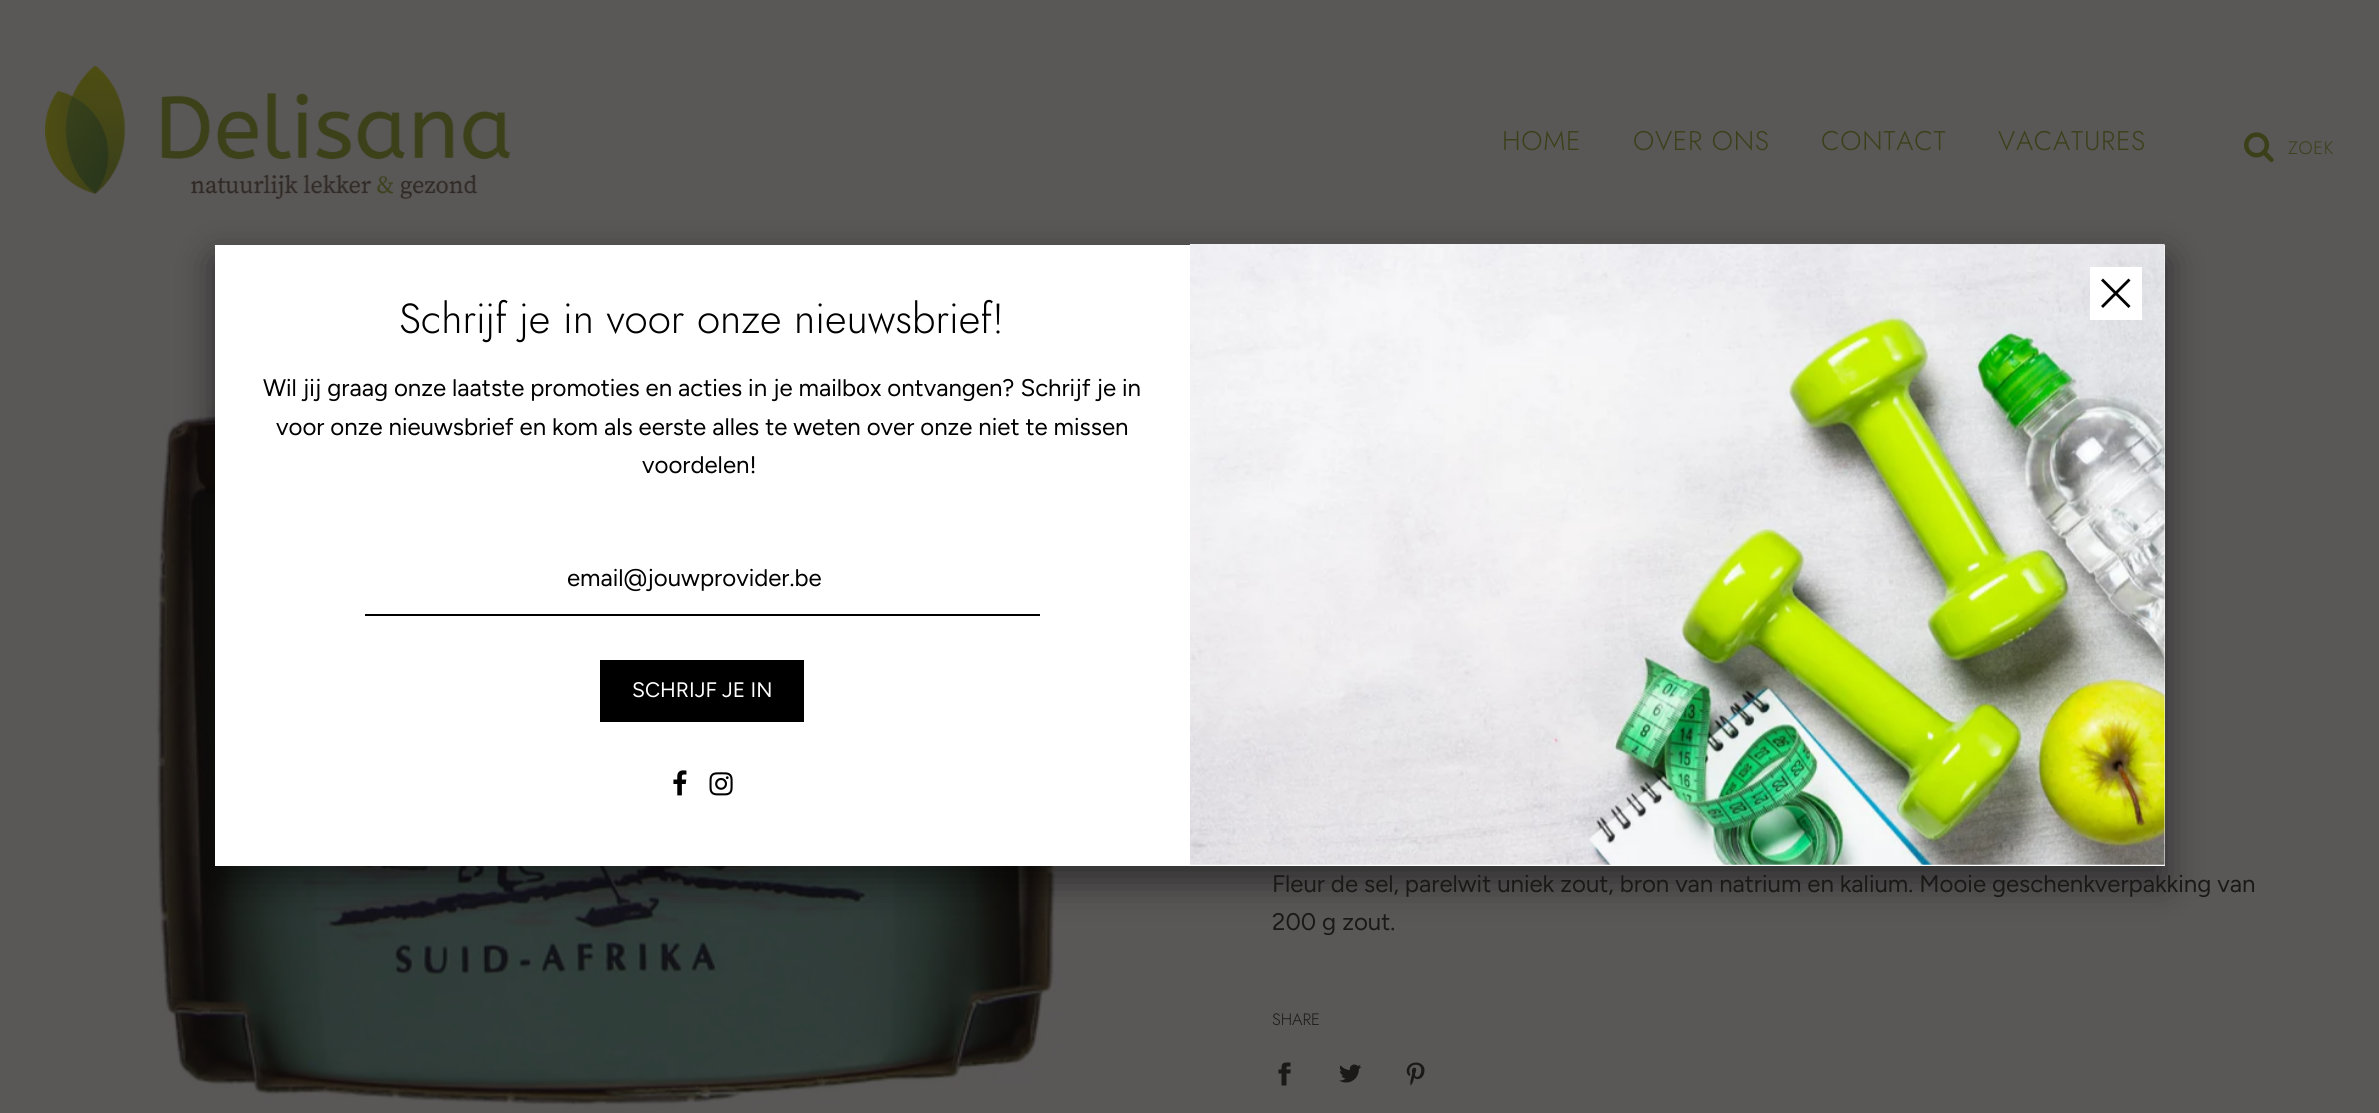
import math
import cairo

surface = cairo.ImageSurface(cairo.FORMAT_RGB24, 2379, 1113)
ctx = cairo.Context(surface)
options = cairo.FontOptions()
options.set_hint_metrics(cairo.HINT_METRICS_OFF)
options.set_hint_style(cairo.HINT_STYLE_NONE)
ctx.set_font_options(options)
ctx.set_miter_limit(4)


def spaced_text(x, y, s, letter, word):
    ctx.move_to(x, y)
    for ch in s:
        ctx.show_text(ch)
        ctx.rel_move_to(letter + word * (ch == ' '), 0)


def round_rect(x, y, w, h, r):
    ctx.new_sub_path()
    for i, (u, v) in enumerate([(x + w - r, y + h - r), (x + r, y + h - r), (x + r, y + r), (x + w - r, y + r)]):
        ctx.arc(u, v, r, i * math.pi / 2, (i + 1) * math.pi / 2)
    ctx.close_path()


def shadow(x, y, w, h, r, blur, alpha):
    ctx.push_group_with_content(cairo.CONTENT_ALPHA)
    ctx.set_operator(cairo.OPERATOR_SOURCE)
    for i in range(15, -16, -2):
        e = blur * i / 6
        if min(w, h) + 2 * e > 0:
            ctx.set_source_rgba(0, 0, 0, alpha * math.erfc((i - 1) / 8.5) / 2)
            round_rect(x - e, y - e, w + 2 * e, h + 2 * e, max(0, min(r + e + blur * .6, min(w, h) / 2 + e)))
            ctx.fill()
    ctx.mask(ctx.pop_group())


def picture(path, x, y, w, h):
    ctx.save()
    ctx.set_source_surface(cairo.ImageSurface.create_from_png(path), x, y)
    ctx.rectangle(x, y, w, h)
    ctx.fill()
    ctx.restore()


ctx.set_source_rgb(0.353, 0.341, 0.341)
ctx.paint()
picture("img6.png", 156, 390, 906, 720)
ctx.set_source_rgb(0, 0, 0)
shadow(215, 260, 1950, 621, 0, 19, 0.5)
ctx.set_source_rgb(1, 1, 1)
ctx.rectangle(215, 245, 1950, 621)
ctx.fill()
picture("img3.png", 1190, 244, 975, 621)
ctx.rectangle(2090, 267, 52, 53)
ctx.fill()
ctx.set_source_rgb(0, 0, 0)
ctx.new_path()
ctx.move_to(2128.5, 278.5)
ctx.line_to(2130.5, 280.5)
ctx.line_to(2103, 308)
ctx.line_to(2101, 306)
ctx.close_path()
ctx.fill()
ctx.new_path()
ctx.move_to(2101, 280.5)
ctx.line_to(2103, 278.5)
ctx.line_to(2130.5, 306)
ctx.line_to(2128.5, 308)
ctx.close_path()
ctx.fill()
ctx.select_font_face("Jost Light")
ctx.set_font_size(42)
ctx.move_to(399, 333)
ctx.show_text("Schrijf je in voor onze nieuwsbrief!")
ctx.select_font_face("Figtree")
ctx.set_font_size(24)
ctx.move_to(263, 396)
ctx.show_text("Wil jij graag onze laatste promoties en acties in je mailbox ontvangen? Schrijf je in")
ctx.move_to(276, 435)
ctx.show_text("voor onze nieuwsbrief en kom als eerste alles te weten over onze niet te missen")
ctx.move_to(642, 473)
ctx.show_text("voordelen!")
ctx.rectangle(365, 614, 675, 2)
ctx.fill()
ctx.move_to(567, 586)
ctx.show_text("email@jouwprovider.be")
ctx.rectangle(600, 660, 204, 62)
ctx.fill()
ctx.set_font_size(21)
ctx.set_source_rgb(1, 1, 1)
ctx.move_to(632, 697)
ctx.show_text("SCHRIJF JE IN")
picture("img1.png", 673, 770, 14, 26)
picture("img2.png", 709, 772, 24, 24)
picture("img4.png", 45, 66, 465, 133)
ctx.select_font_face("Jost Light")
ctx.set_font_size(27)
ctx.set_source_rgb(0.235, 0.251, 0.098)
spaced_text(1502, 150, "HOME", 0.75, 0)
spaced_text(1633, 150, "OVER ONS", 0.75, 0)
spaced_text(1821, 150, "CONTACT", 0.75, 0)
spaced_text(1998, 150, "VACATURES", 0.75, 0)
picture("img5.png", 2244, 132, 30, 31)
ctx.set_font_size(18)
spaced_text(2288, 154, "ZOEK", 0.75, 0)
ctx.select_font_face("Figtree")
ctx.set_font_size(24)
ctx.set_source_rgb(0.106, 0.094, 0.094)
ctx.move_to(1272, 892)
ctx.show_text("Fleur de sel, parelwit uniek zout, bron van natrium en kalium. Mooie geschenkverpakking van")
ctx.move_to(1272, 930)
ctx.show_text("200 g zout.")
ctx.select_font_face("Jost Light")
ctx.set_font_size(16.5)
ctx.move_to(1272, 1025)
ctx.show_text("SHARE")
picture("img7.png", 1278, 1062, 13, 24)
picture("img8.png", 1339, 1064, 23, 19)
picture("img9.png", 1406, 1062, 19, 24)
surface.write_to_png("page.png")
